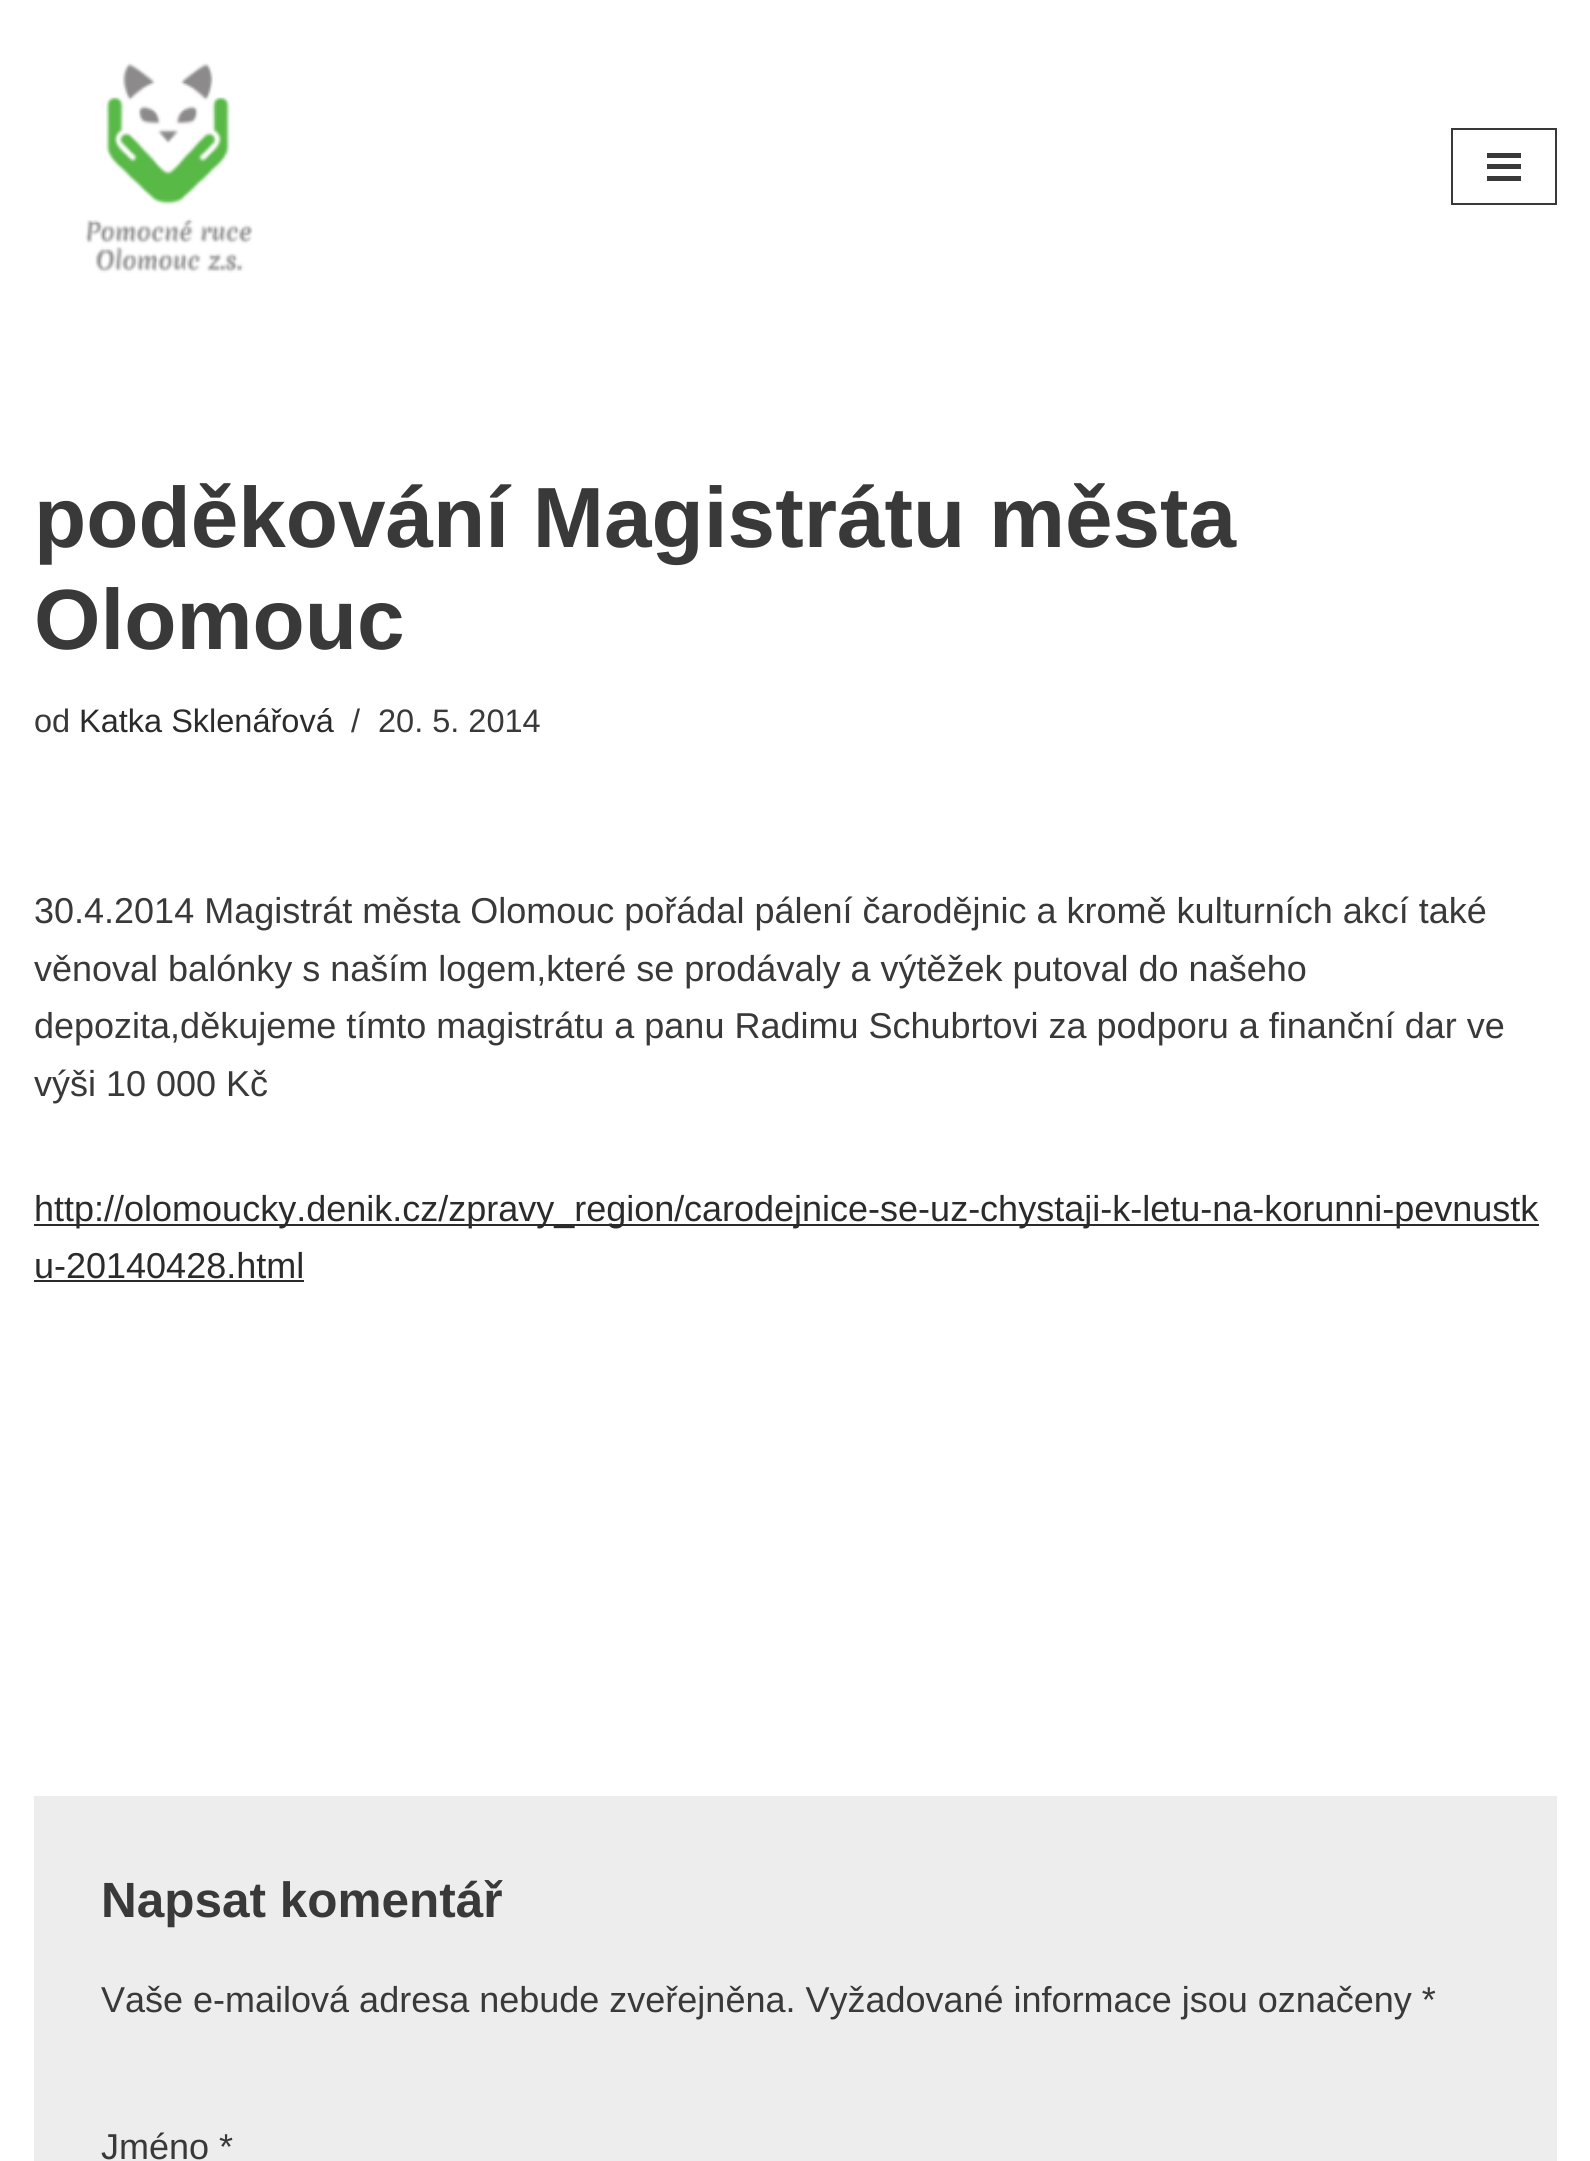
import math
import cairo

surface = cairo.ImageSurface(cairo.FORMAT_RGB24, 1590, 2161)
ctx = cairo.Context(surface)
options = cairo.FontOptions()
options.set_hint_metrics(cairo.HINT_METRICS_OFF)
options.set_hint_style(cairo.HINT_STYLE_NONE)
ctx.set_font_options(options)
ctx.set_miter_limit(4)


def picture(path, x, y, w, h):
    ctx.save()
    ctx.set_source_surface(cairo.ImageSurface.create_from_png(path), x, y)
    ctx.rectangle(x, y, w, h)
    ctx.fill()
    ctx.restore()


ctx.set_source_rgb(1, 1, 1)
ctx.paint()
picture("img1.png", 85, 62, 168, 211)
ctx.rectangle(1452, 129, 104, 75)
ctx.set_source_rgb(0.224, 0.224, 0.224)
ctx.stroke()
ctx.rectangle(1487, 153, 34, 5)
ctx.fill()
ctx.rectangle(1487, 164, 34, 5)
ctx.fill()
ctx.rectangle(1487, 176, 34, 5)
ctx.fill()
ctx.select_font_face("Liberation Sans", cairo.FONT_SLANT_NORMAL, cairo.FONT_WEIGHT_BOLD)
ctx.set_font_size(85.5)
ctx.move_to(34, 547)
ctx.show_text("poděkování Magistrátu města")
ctx.move_to(34, 649)
ctx.show_text("Olomouc")
ctx.select_font_face("Liberation Sans")
ctx.set_font_size(32.5)
ctx.move_to(34, 732)
ctx.show_text("od")
ctx.set_source_rgb(0.169, 0.169, 0.169)
ctx.move_to(79, 732)
ctx.show_text("Katka Sklenářová")
ctx.set_source_rgb(0.224, 0.224, 0.224)
ctx.move_to(351, 732)
ctx.show_text("/")
ctx.move_to(378, 732)
ctx.show_text("20. 5. 2014")
ctx.set_font_size(36)
ctx.move_to(34, 923)
ctx.show_text("30.4.2014 Magistrát města Olomouc pořádal pálení čarodějnic a kromě kulturních akcí také")
ctx.move_to(34, 981)
ctx.show_text("věnoval balónky s naším logem,které se prodávaly a výtěžek putoval do našeho")
ctx.move_to(34, 1038)
ctx.show_text("depozita,děkujeme tímto magistrátu a panu Radimu Schubrtovi za podporu a finanční dar ve")
ctx.move_to(34, 1096)
ctx.show_text("výši 10 000 Kč")
ctx.set_source_rgb(0.169, 0.169, 0.169)
ctx.rectangle(34, 1224, 650, 2)
ctx.fill()
ctx.move_to(34, 1221)
ctx.show_text("http://olomoucky.denik.cz/zpravy_region/")
ctx.rectangle(684, 1224, 855, 2)
ctx.fill()
ctx.move_to(684, 1221)
ctx.show_text("carodejnice-se-uz-chystaji-k-letu-na-korunni-pevnustk")
ctx.move_to(34, 1278)
ctx.show_text("u-20140428.html")
ctx.rectangle(34, 1280, 270, 2)
ctx.fill()
ctx.set_source_rgb(0.929, 0.929, 0.929)
ctx.rectangle(34, 1796, 1523, 365)
ctx.fill()
ctx.select_font_face("Liberation Sans", cairo.FONT_SLANT_NORMAL, cairo.FONT_WEIGHT_BOLD)
ctx.set_font_size(49.5)
ctx.set_source_rgb(0.224, 0.224, 0.224)
ctx.move_to(101, 1917)
ctx.show_text("Napsat komentář")
ctx.select_font_face("Liberation Sans")
ctx.set_font_size(36)
ctx.move_to(101, 2012)
ctx.show_text("Vaše e-mailová adresa nebude zveřejněna. Vyžadované informace jsou označeny *")
ctx.move_to(101, 2159)
ctx.show_text("Jméno *")
surface.write_to_png("page.png")
